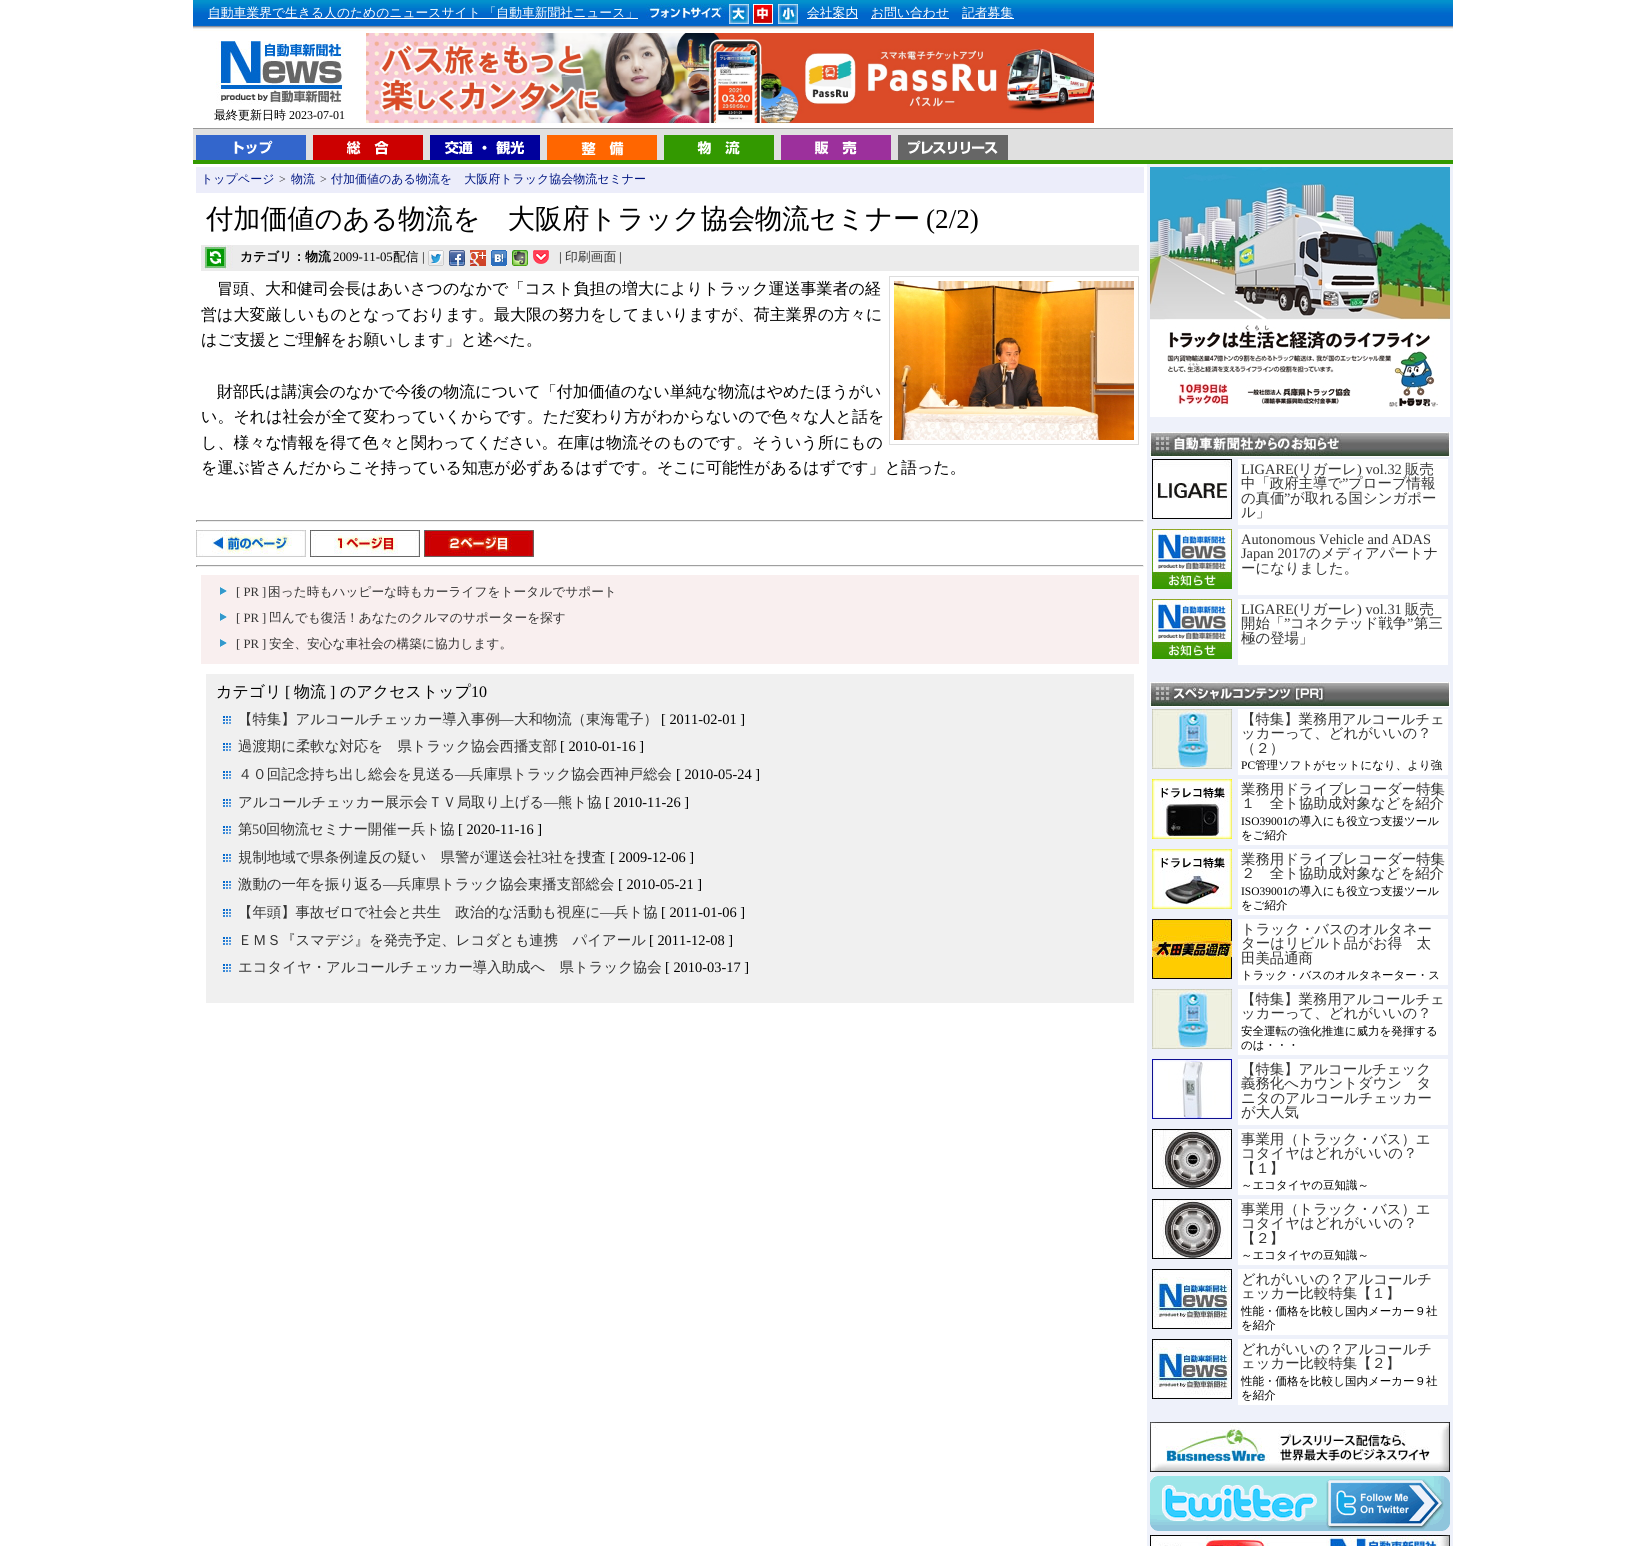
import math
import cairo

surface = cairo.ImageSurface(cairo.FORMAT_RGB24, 1645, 1546)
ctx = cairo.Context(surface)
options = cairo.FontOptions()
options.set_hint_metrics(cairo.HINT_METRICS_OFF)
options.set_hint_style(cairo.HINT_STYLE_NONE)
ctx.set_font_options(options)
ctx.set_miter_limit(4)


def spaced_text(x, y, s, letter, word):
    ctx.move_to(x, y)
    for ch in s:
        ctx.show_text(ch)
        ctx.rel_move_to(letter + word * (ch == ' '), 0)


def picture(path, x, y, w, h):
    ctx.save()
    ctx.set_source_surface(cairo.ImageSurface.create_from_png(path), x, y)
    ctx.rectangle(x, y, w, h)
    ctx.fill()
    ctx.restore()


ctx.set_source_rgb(1, 1, 1)
ctx.paint()
picture("img1.png", 193, 0, 1260, 33)
ctx.set_source_rgb(1, 1, 1)
ctx.rectangle(208, 18, 430, 1)
ctx.fill()
ctx.select_font_face("WenQuanYi Zen Hei Medium")
ctx.set_font_size(12.8)
spaced_text(208, 17, "自動車業界で生きる人のためのニュースサイト 「自動車新聞社ニュース」", 0, -1)
picture("img2.png", 646, 4, 80, 16)
picture("img3.png", 729, 4, 21, 20)
picture("img4.png", 753, 4, 21, 20)
picture("img5.png", 778, 4, 21, 20)
ctx.rectangle(807, 18, 51, 1)
ctx.fill()
ctx.move_to(807, 17)
ctx.show_text("会社案内")
ctx.rectangle(871, 18, 78, 1)
ctx.fill()
ctx.move_to(871, 17)
ctx.show_text("お問い合わせ")
ctx.rectangle(962, 18, 52, 1)
ctx.fill()
ctx.move_to(962, 17)
ctx.show_text("記者募集")
picture("img6.png", 216, 41, 128, 64)
ctx.set_font_size(12)
ctx.set_source_rgb(0, 0, 0)
ctx.move_to(214, 119)
ctx.show_text("最終更新日時")
ctx.select_font_face("Liberation Serif")
ctx.move_to(289, 119)
ctx.show_text("2023-07-01")
picture("img7.png", 366, 33, 728, 90)
picture("img8.png", 193, 128, 1260, 36)
picture("img9.png", 196, 135, 110, 25)
picture("img10.png", 313, 135, 110, 25)
picture("img11.png", 430, 135, 110, 25)
picture("img12.png", 547, 135, 110, 25)
picture("img13.png", 664, 135, 110, 25)
picture("img14.png", 781, 135, 110, 25)
picture("img15.png", 898, 135, 110, 25)
ctx.set_source_rgb(0.922, 0.929, 0.98)
ctx.rectangle(196, 167, 948, 26)
ctx.fill()
ctx.select_font_face("WenQuanYi Zen Hei Medium")
ctx.set_source_rgb(0, 0.086, 0.51)
ctx.move_to(201, 183)
ctx.show_text("トップページ")
ctx.select_font_face("Liberation Serif")
ctx.set_source_rgb(0.2, 0.2, 0.2)
ctx.move_to(279, 183)
ctx.show_text(">")
ctx.select_font_face("WenQuanYi Zen Hei Medium")
ctx.set_source_rgb(0, 0.086, 0.51)
ctx.move_to(291, 183)
ctx.show_text("物流")
ctx.select_font_face("Liberation Serif")
ctx.set_source_rgb(0.2, 0.2, 0.2)
ctx.move_to(320, 183)
ctx.show_text(">")
ctx.select_font_face("WenQuanYi Zen Hei Medium")
ctx.set_source_rgb(0, 0.086, 0.51)
ctx.move_to(331, 183)
ctx.show_text("付加価値のある物流を　大阪府トラック協会物流セミナー")
ctx.set_font_size(27.2)
ctx.set_source_rgb(0, 0, 0)
ctx.move_to(206, 228)
ctx.show_text("付加価値のある物流を　大阪府トラック協会物流セミナー")
ctx.select_font_face("Liberation Serif")
ctx.move_to(926, 228)
ctx.show_text("(2/2)")
ctx.set_source_rgb(0.918, 0.918, 0.918)
ctx.rectangle(201, 245, 938, 26)
ctx.fill()
picture("img16.png", 201, 245, 32, 24)
ctx.select_font_face("WenQuanYi Zen Hei", cairo.FONT_SLANT_NORMAL, cairo.FONT_WEIGHT_BOLD)
ctx.set_font_size(12.8)
ctx.set_source_rgb(0, 0, 0)
ctx.move_to(240, 261)
ctx.show_text("カテゴリ：物流")
ctx.select_font_face("Liberation Serif")
ctx.move_to(333, 261)
ctx.show_text("2009-11-05")
ctx.select_font_face("WenQuanYi Zen Hei Medium")
ctx.move_to(393, 261)
ctx.show_text("配信")
ctx.select_font_face("Liberation Serif")
ctx.move_to(422, 261)
ctx.show_text("|")
picture("img17.png", 428, 250, 16, 16)
picture("img18.png", 449, 250, 16, 16)
picture("img19.png", 470, 250, 16, 16)
picture("img20.png", 491, 250, 16, 16)
picture("img21.png", 512, 250, 16, 16)
picture("img22.png", 533, 250, 16, 14)
ctx.move_to(559, 261)
ctx.show_text("|")
ctx.select_font_face("WenQuanYi Zen Hei Medium")
ctx.set_source_rgb(0.2, 0.2, 0.2)
ctx.move_to(565, 261)
ctx.show_text("印刷画面")
ctx.select_font_face("Liberation Serif")
ctx.set_source_rgb(0, 0, 0)
ctx.move_to(619, 261)
ctx.show_text("|")
ctx.select_font_face("WenQuanYi Zen Hei Medium")
ctx.set_font_size(16)
ctx.move_to(217, 294)
ctx.show_text("冒頭、大和健司会長はあいさつのなかで「コスト負担の増大によりトラック運送事業者の経")
ctx.move_to(201, 320)
ctx.show_text("営は大変厳しいものとなっております。最大限の努力をしてまいりますが、荷主業界の方々に")
ctx.move_to(201, 345)
ctx.show_text("はご支援とご理解をお願いします」と述べた。")
ctx.move_to(217, 397)
ctx.show_text("財部氏は講演会のなかで今後の物流について「付加価値のない単純な物流はやめたほうがい")
ctx.move_to(201, 422)
ctx.show_text("い。それは社会が全て変わっていくからです。ただ変わり方がわからないので色々な人と話を")
ctx.move_to(201, 448)
ctx.show_text("し、様々な情報を得て色々と関わってください。在庫は物流そのものです。そういう所にもの")
ctx.move_to(201, 473)
ctx.show_text("を運ぶ皆さんだからこそ持っている知恵が必ずあるはずです。そこに可能性があるはずです」と語った。")
ctx.rectangle(889.5, 276.5, 249, 168)
ctx.set_source_rgb(0.867, 0.867, 0.867)
ctx.set_line_width(1)
ctx.stroke()
picture("img23.png", 894, 281, 240, 159)
ctx.set_source_rgb(0.624, 0.624, 0.624)
ctx.rectangle(196, 520, 948, 1)
ctx.fill()
ctx.set_source_rgb(0.933, 0.933, 0.933)
ctx.rectangle(1143, 520, 1, 2)
ctx.fill()
ctx.rectangle(196, 521, 948, 1)
ctx.fill()
ctx.set_source_rgb(0.624, 0.624, 0.624)
ctx.rectangle(196, 520, 1, 2)
ctx.fill()
picture("img24.png", 196, 530, 110, 27)
picture("img25.png", 310, 530, 110, 27)
picture("img26.png", 424, 530, 110, 27)
ctx.rectangle(196, 565, 948, 1)
ctx.fill()
ctx.set_source_rgb(0.933, 0.933, 0.933)
ctx.rectangle(1143, 565, 1, 2)
ctx.fill()
ctx.rectangle(196, 566, 948, 1)
ctx.fill()
ctx.set_source_rgb(0.624, 0.624, 0.624)
ctx.rectangle(196, 565, 1, 2)
ctx.fill()
ctx.set_source_rgb(0.973, 0.937, 0.937)
ctx.rectangle(201, 575, 938, 89)
ctx.fill()
picture("img27.png", 220, 587, 7, 8)
ctx.select_font_face("Liberation Serif")
ctx.set_font_size(12.7)
ctx.set_source_rgb(0.2, 0.2, 0.2)
ctx.move_to(236, 596)
ctx.show_text("[ PR ]")
ctx.select_font_face("WenQuanYi Zen Hei Medium")
ctx.move_to(268, 596)
ctx.show_text("困った時もハッピーな時もカーライフをトータルでサポート")
picture("img27.png", 220, 613, 7, 8)
ctx.select_font_face("Liberation Serif")
ctx.move_to(236, 622)
ctx.show_text("[ PR ]")
ctx.select_font_face("WenQuanYi Zen Hei Medium")
ctx.move_to(269, 622)
ctx.show_text("凹んでも復活！あなたのクルマのサポーターを探す")
picture("img27.png", 220, 639, 7, 8)
ctx.select_font_face("Liberation Serif")
ctx.move_to(236, 648)
ctx.show_text("[ PR ]")
ctx.select_font_face("WenQuanYi Zen Hei Medium")
ctx.move_to(269, 648)
ctx.show_text("安全、安心な車社会の構築に協力します。")
ctx.set_source_rgb(0.941, 0.941, 0.941)
ctx.rectangle(206, 674, 928, 329)
ctx.fill()
ctx.set_font_size(16)
ctx.set_source_rgb(0, 0, 0)
ctx.move_to(216, 697)
ctx.show_text("カテゴリ")
ctx.select_font_face("Liberation Serif")
ctx.move_to(285, 697)
ctx.show_text("[")
ctx.select_font_face("WenQuanYi Zen Hei Medium")
ctx.move_to(294, 697)
ctx.show_text("物流")
ctx.select_font_face("Liberation Serif")
ctx.move_to(330, 697)
ctx.show_text("]")
ctx.select_font_face("WenQuanYi Zen Hei Medium")
ctx.move_to(340, 697)
ctx.show_text("のアクセストップ")
ctx.select_font_face("Liberation Serif")
ctx.move_to(471, 697)
ctx.show_text("10")
picture("img28.png", 223, 716, 8, 8)
ctx.select_font_face("WenQuanYi Zen Hei Medium")
ctx.set_font_size(14.4)
ctx.set_source_rgb(0.2, 0.2, 0.2)
ctx.move_to(238, 724)
ctx.show_text("【特集】アルコールチェッカー導入事例")
ctx.select_font_face("Liberation Serif")
ctx.move_to(499, 724)
ctx.show_text("―")
ctx.select_font_face("WenQuanYi Zen Hei Medium")
ctx.move_to(514, 724)
ctx.show_text("大和物流（東海電子）")
ctx.select_font_face("Liberation Serif")
ctx.set_source_rgb(0, 0, 0)
ctx.move_to(661, 724)
ctx.show_text("[ 2011-02-01 ]")
picture("img28.png", 223, 743, 8, 8)
ctx.select_font_face("WenQuanYi Zen Hei Medium")
ctx.set_source_rgb(0.2, 0.2, 0.2)
ctx.move_to(238, 751)
ctx.show_text("過渡期に柔軟な対応を　県トラック協会西播支部")
ctx.select_font_face("Liberation Serif")
ctx.set_source_rgb(0, 0, 0)
ctx.move_to(560, 751)
ctx.show_text("[ 2010-01-16 ]")
picture("img28.png", 223, 771, 8, 8)
ctx.select_font_face("WenQuanYi Zen Hei Medium")
ctx.set_source_rgb(0.2, 0.2, 0.2)
ctx.move_to(238, 779)
ctx.show_text("４０回記念持ち出し総会を見送る")
ctx.select_font_face("Liberation Serif")
ctx.move_to(455, 779)
ctx.show_text("―")
ctx.select_font_face("WenQuanYi Zen Hei Medium")
ctx.move_to(469, 779)
ctx.show_text("兵庫県トラック協会西神戸総会")
ctx.select_font_face("Liberation Serif")
ctx.set_source_rgb(0, 0, 0)
ctx.move_to(676, 779)
ctx.show_text("[ 2010-05-24 ]")
picture("img28.png", 223, 799, 8, 8)
ctx.select_font_face("WenQuanYi Zen Hei Medium")
ctx.set_source_rgb(0.2, 0.2, 0.2)
ctx.move_to(238, 807)
ctx.show_text("アルコールチェッカー展示会ＴＶ局取り上げる")
ctx.select_font_face("Liberation Serif")
ctx.move_to(544, 807)
ctx.show_text("―")
ctx.select_font_face("WenQuanYi Zen Hei Medium")
ctx.move_to(558, 807)
ctx.show_text("熊ト協")
ctx.select_font_face("Liberation Serif")
ctx.set_source_rgb(0, 0, 0)
ctx.move_to(605, 807)
ctx.show_text("[ 2010-11-26 ]")
picture("img28.png", 223, 826, 8, 8)
ctx.select_font_face("WenQuanYi Zen Hei Medium")
ctx.set_source_rgb(0.2, 0.2, 0.2)
ctx.move_to(238, 834)
ctx.show_text("第")
ctx.select_font_face("Liberation Serif")
ctx.move_to(252, 834)
ctx.show_text("50")
ctx.select_font_face("WenQuanYi Zen Hei Medium")
ctx.move_to(266, 834)
ctx.show_text("回物流セミナー開催ー兵ト協")
ctx.select_font_face("Liberation Serif")
ctx.set_source_rgb(0, 0, 0)
ctx.move_to(458, 834)
ctx.show_text("[ 2020-11-16 ]")
picture("img28.png", 223, 854, 8, 8)
ctx.select_font_face("WenQuanYi Zen Hei Medium")
ctx.set_source_rgb(0.2, 0.2, 0.2)
ctx.move_to(238, 862)
ctx.show_text("規制地域で県条例違反の疑い　県警が運送会社")
ctx.select_font_face("Liberation Serif")
ctx.move_to(541, 862)
ctx.show_text("3")
ctx.select_font_face("WenQuanYi Zen Hei Medium")
ctx.move_to(548, 862)
ctx.show_text("社を捜査")
ctx.select_font_face("Liberation Serif")
ctx.set_source_rgb(0, 0, 0)
ctx.move_to(610, 862)
ctx.show_text("[ 2009-12-06 ]")
picture("img28.png", 223, 881, 8, 8)
ctx.select_font_face("WenQuanYi Zen Hei Medium")
ctx.set_source_rgb(0.2, 0.2, 0.2)
ctx.move_to(238, 889)
ctx.show_text("激動の一年を振り返る")
ctx.select_font_face("Liberation Serif")
ctx.move_to(383, 889)
ctx.show_text("―")
ctx.select_font_face("WenQuanYi Zen Hei Medium")
ctx.move_to(397, 889)
ctx.show_text("兵庫県トラック協会東播支部総会")
ctx.select_font_face("Liberation Serif")
ctx.set_source_rgb(0, 0, 0)
ctx.move_to(618, 889)
ctx.show_text("[ 2010-05-21 ]")
picture("img28.png", 223, 909, 8, 8)
ctx.select_font_face("WenQuanYi Zen Hei Medium")
ctx.set_source_rgb(0.2, 0.2, 0.2)
ctx.move_to(238, 917)
ctx.show_text("【年頭】事故ゼロで社会と共生　政治的な活動も視座に")
ctx.select_font_face("Liberation Serif")
ctx.move_to(600, 917)
ctx.show_text("―")
ctx.select_font_face("WenQuanYi Zen Hei Medium")
ctx.move_to(614, 917)
ctx.show_text("兵ト協")
ctx.select_font_face("Liberation Serif")
ctx.set_source_rgb(0, 0, 0)
ctx.move_to(661, 917)
ctx.show_text("[ 2011-01-06 ]")
picture("img28.png", 223, 937, 8, 8)
ctx.select_font_face("WenQuanYi Zen Hei Medium")
ctx.set_source_rgb(0.2, 0.2, 0.2)
ctx.move_to(238, 945)
ctx.show_text("ＥＭＳ『スマデジ』を発売予定、レコダとも連携　パイアール")
ctx.select_font_face("Liberation Serif")
ctx.set_source_rgb(0, 0, 0)
ctx.move_to(649, 945)
ctx.show_text("[ 2011-12-08 ]")
picture("img28.png", 223, 964, 8, 8)
ctx.select_font_face("WenQuanYi Zen Hei Medium")
ctx.set_source_rgb(0.2, 0.2, 0.2)
ctx.move_to(238, 972)
ctx.show_text("エコタイヤ・アルコールチェッカー導入助成へ　県トラック協会")
ctx.select_font_face("Liberation Serif")
ctx.set_source_rgb(0, 0, 0)
ctx.move_to(665, 972)
ctx.show_text("[ 2010-03-17 ]")
ctx.set_source_rgb(0.933, 0.945, 0.98)
ctx.rectangle(1147, 164, 306, 1382)
ctx.fill()
picture("img29.png", 1150, 167, 300, 250)
picture("img30.png", 1150, 432, 300, 25)
picture("img31.png", 1152, 459, 80, 60)
ctx.set_source_rgb(1, 1, 1)
ctx.rectangle(1238, 459, 210, 66)
ctx.fill()
ctx.set_source_rgb(0.2, 0.2, 0.2)
ctx.move_to(1241, 474)
ctx.show_text("LIGARE(")
ctx.select_font_face("WenQuanYi Zen Hei Medium")
ctx.move_to(1298, 474)
ctx.show_text("リガーレ")
ctx.select_font_face("Liberation Serif")
ctx.move_to(1357, 474)
ctx.show_text(") vol.32")
ctx.select_font_face("WenQuanYi Zen Hei Medium")
ctx.move_to(1405, 474)
ctx.show_text("販売")
ctx.move_to(1241, 488)
ctx.show_text("中「政府主導で")
ctx.select_font_face("Liberation Serif")
ctx.move_to(1342, 488)
ctx.show_text("”")
ctx.select_font_face("WenQuanYi Zen Hei Medium")
ctx.move_to(1348, 488)
ctx.show_text("プローブ情報")
ctx.move_to(1241, 503)
ctx.show_text("の真価")
ctx.select_font_face("Liberation Serif")
ctx.move_to(1284, 503)
ctx.show_text("”")
ctx.select_font_face("WenQuanYi Zen Hei Medium")
ctx.move_to(1290, 503)
ctx.show_text("が取れる国シンガポー")
ctx.move_to(1241, 517)
ctx.show_text("ル」")
picture("img32.png", 1152, 529, 80, 60)
ctx.set_source_rgb(1, 1, 1)
ctx.rectangle(1238, 529, 210, 66)
ctx.fill()
ctx.select_font_face("Liberation Serif")
ctx.set_source_rgb(0.2, 0.2, 0.2)
ctx.move_to(1241, 544)
ctx.show_text("Autonomous Vehicle and ADAS")
ctx.move_to(1241, 558)
ctx.show_text("Japan 2017")
ctx.select_font_face("WenQuanYi Zen Hei Medium")
ctx.move_to(1306, 558)
ctx.show_text("のメディアパートナ")
ctx.move_to(1241, 573)
ctx.show_text("ーになりました。")
picture("img32.png", 1152, 599, 80, 60)
ctx.set_source_rgb(1, 1, 1)
ctx.rectangle(1238, 599, 210, 66)
ctx.fill()
ctx.select_font_face("Liberation Serif")
ctx.set_source_rgb(0.2, 0.2, 0.2)
ctx.move_to(1241, 614)
ctx.show_text("LIGARE(")
ctx.select_font_face("WenQuanYi Zen Hei Medium")
ctx.move_to(1298, 614)
ctx.show_text("リガーレ")
ctx.select_font_face("Liberation Serif")
ctx.move_to(1357, 614)
ctx.show_text(") vol.31")
ctx.select_font_face("WenQuanYi Zen Hei Medium")
ctx.move_to(1405, 614)
ctx.show_text("販売")
ctx.move_to(1241, 628)
ctx.show_text("開始「")
ctx.select_font_face("Liberation Serif")
ctx.move_to(1284, 628)
ctx.show_text("”")
ctx.select_font_face("WenQuanYi Zen Hei Medium")
ctx.move_to(1290, 628)
ctx.show_text("コネクテッド戦争")
ctx.select_font_face("Liberation Serif")
ctx.move_to(1407, 628)
ctx.show_text("”")
ctx.select_font_face("WenQuanYi Zen Hei Medium")
ctx.move_to(1414, 628)
ctx.show_text("第三")
ctx.move_to(1241, 643)
ctx.show_text("極の登場」")
picture("img33.png", 1150, 682, 300, 25)
picture("img34.png", 1152, 709, 80, 60)
ctx.set_source_rgb(1, 1, 1)
ctx.rectangle(1238, 709, 210, 66)
ctx.fill()
ctx.set_source_rgb(0.2, 0.2, 0.2)
ctx.move_to(1241, 724)
ctx.show_text("【特集】業務用アルコールチェ")
ctx.move_to(1241, 738)
ctx.show_text("ッカーって、どれがいいの？")
ctx.move_to(1241, 753)
ctx.show_text("（２）")
ctx.select_font_face("Liberation Serif")
ctx.set_font_size(11.5)
ctx.set_source_rgb(0, 0, 0)
ctx.move_to(1241, 769)
ctx.show_text("PC")
ctx.select_font_face("WenQuanYi Zen Hei Medium")
ctx.move_to(1255, 769)
ctx.show_text("管理ソフトがセットになり、より強")
picture("img35.png", 1152, 779, 80, 60)
ctx.set_source_rgb(1, 1, 1)
ctx.rectangle(1238, 779, 210, 66)
ctx.fill()
ctx.set_font_size(14.4)
ctx.set_source_rgb(0.2, 0.2, 0.2)
ctx.move_to(1241, 794)
ctx.show_text("業務用ドライブレコーダー特集")
ctx.move_to(1241, 808)
ctx.show_text("１　全ト協助成対象などを紹介")
ctx.select_font_face("Liberation Serif")
ctx.set_font_size(11.5)
ctx.set_source_rgb(0, 0, 0)
ctx.move_to(1241, 825)
ctx.show_text("ISO39001")
ctx.select_font_face("WenQuanYi Zen Hei Medium")
ctx.move_to(1288, 825)
ctx.show_text("の導入にも役立つ支援ツール")
ctx.move_to(1241, 839)
ctx.show_text("をご紹介")
picture("img36.png", 1152, 849, 80, 60)
ctx.set_source_rgb(1, 1, 1)
ctx.rectangle(1238, 849, 210, 66)
ctx.fill()
ctx.set_font_size(14.4)
ctx.set_source_rgb(0.2, 0.2, 0.2)
ctx.move_to(1241, 864)
ctx.show_text("業務用ドライブレコーダー特集")
ctx.move_to(1241, 878)
ctx.show_text("２　全ト協助成対象などを紹介")
ctx.select_font_face("Liberation Serif")
ctx.set_font_size(11.5)
ctx.set_source_rgb(0, 0, 0)
ctx.move_to(1241, 895)
ctx.show_text("ISO39001")
ctx.select_font_face("WenQuanYi Zen Hei Medium")
ctx.move_to(1288, 895)
ctx.show_text("の導入にも役立つ支援ツール")
ctx.move_to(1241, 909)
ctx.show_text("をご紹介")
picture("img37.png", 1152, 919, 80, 60)
ctx.set_source_rgb(1, 1, 1)
ctx.rectangle(1238, 919, 210, 66)
ctx.fill()
ctx.set_font_size(14.4)
ctx.set_source_rgb(0.2, 0.2, 0.2)
ctx.move_to(1241, 934)
ctx.show_text("トラック・バスのオルタネー")
ctx.move_to(1241, 948)
ctx.show_text("ターはリビルト品がお得　太")
ctx.move_to(1241, 963)
ctx.show_text("田美品通商")
ctx.set_font_size(11.5)
ctx.set_source_rgb(0, 0, 0)
ctx.move_to(1241, 979)
ctx.show_text("トラック・バスのオルタネーター・ス")
picture("img34.png", 1152, 989, 80, 60)
ctx.set_source_rgb(1, 1, 1)
ctx.rectangle(1238, 989, 210, 66)
ctx.fill()
ctx.set_font_size(14.4)
ctx.set_source_rgb(0.2, 0.2, 0.2)
ctx.move_to(1241, 1004)
ctx.show_text("【特集】業務用アルコールチェ")
ctx.move_to(1241, 1018)
ctx.show_text("ッカーって、どれがいいの？")
ctx.set_font_size(11.5)
ctx.set_source_rgb(0, 0, 0)
ctx.move_to(1241, 1035)
ctx.show_text("安全運転の強化推進に威力を発揮する")
ctx.move_to(1241, 1049)
ctx.show_text("のは・・・")
picture("img38.png", 1152, 1059, 80, 60)
ctx.set_source_rgb(1, 1, 1)
ctx.rectangle(1238, 1059, 210, 66)
ctx.fill()
ctx.set_font_size(14.4)
ctx.set_source_rgb(0.2, 0.2, 0.2)
ctx.move_to(1241, 1074)
ctx.show_text("【特集】アルコールチェック")
ctx.move_to(1241, 1088)
ctx.show_text("義務化へカウントダウン　タ")
ctx.move_to(1241, 1103)
ctx.show_text("ニタのアルコールチェッカー")
ctx.move_to(1241, 1117)
ctx.show_text("が大人気")
picture("img39.png", 1152, 1129, 80, 60)
ctx.set_source_rgb(1, 1, 1)
ctx.rectangle(1238, 1129, 210, 66)
ctx.fill()
ctx.set_source_rgb(0.2, 0.2, 0.2)
ctx.move_to(1241, 1144)
ctx.show_text("事業用（トラック・バス）エ")
ctx.move_to(1241, 1158)
ctx.show_text("コタイヤはどれがいいの？")
ctx.move_to(1241, 1173)
ctx.show_text("【１】")
ctx.set_font_size(11.5)
ctx.set_source_rgb(0, 0, 0)
ctx.move_to(1241, 1189)
ctx.show_text("～エコタイヤの豆知識～")
picture("img39.png", 1152, 1199, 80, 60)
ctx.set_source_rgb(1, 1, 1)
ctx.rectangle(1238, 1199, 210, 66)
ctx.fill()
ctx.set_font_size(14.4)
ctx.set_source_rgb(0.2, 0.2, 0.2)
ctx.move_to(1241, 1214)
ctx.show_text("事業用（トラック・バス）エ")
ctx.move_to(1241, 1228)
ctx.show_text("コタイヤはどれがいいの？")
ctx.move_to(1241, 1243)
ctx.show_text("【２】")
ctx.set_font_size(11.5)
ctx.set_source_rgb(0, 0, 0)
ctx.move_to(1241, 1259)
ctx.show_text("～エコタイヤの豆知識～")
picture("img40.png", 1152, 1269, 80, 60)
ctx.set_source_rgb(1, 1, 1)
ctx.rectangle(1238, 1269, 210, 66)
ctx.fill()
ctx.set_font_size(14.4)
ctx.set_source_rgb(0.2, 0.2, 0.2)
ctx.move_to(1241, 1284)
ctx.show_text("どれがいいの？アルコールチ")
ctx.move_to(1241, 1298)
ctx.show_text("ェッカー比較特集【１】")
ctx.set_font_size(11.5)
ctx.set_source_rgb(0, 0, 0)
ctx.move_to(1241, 1315)
ctx.show_text("性能・価格を比較し国内メーカー９社")
ctx.move_to(1241, 1329)
ctx.show_text("を紹介")
picture("img40.png", 1152, 1339, 80, 60)
ctx.set_source_rgb(1, 1, 1)
ctx.rectangle(1238, 1339, 210, 66)
ctx.fill()
ctx.set_font_size(14.4)
ctx.set_source_rgb(0.2, 0.2, 0.2)
ctx.move_to(1241, 1354)
ctx.show_text("どれがいいの？アルコールチ")
ctx.move_to(1241, 1368)
ctx.show_text("ェッカー比較特集【２】")
ctx.set_font_size(11.5)
ctx.set_source_rgb(0, 0, 0)
ctx.move_to(1241, 1385)
ctx.show_text("性能・価格を比較し国内メーカー９社")
ctx.move_to(1241, 1399)
ctx.show_text("を紹介")
picture("img41.png", 1150, 1422, 300, 50)
picture("img42.png", 1150, 1476, 300, 55)
picture("img43.png", 1150, 1535, 300, 11)
surface.write_to_png("page.png")
